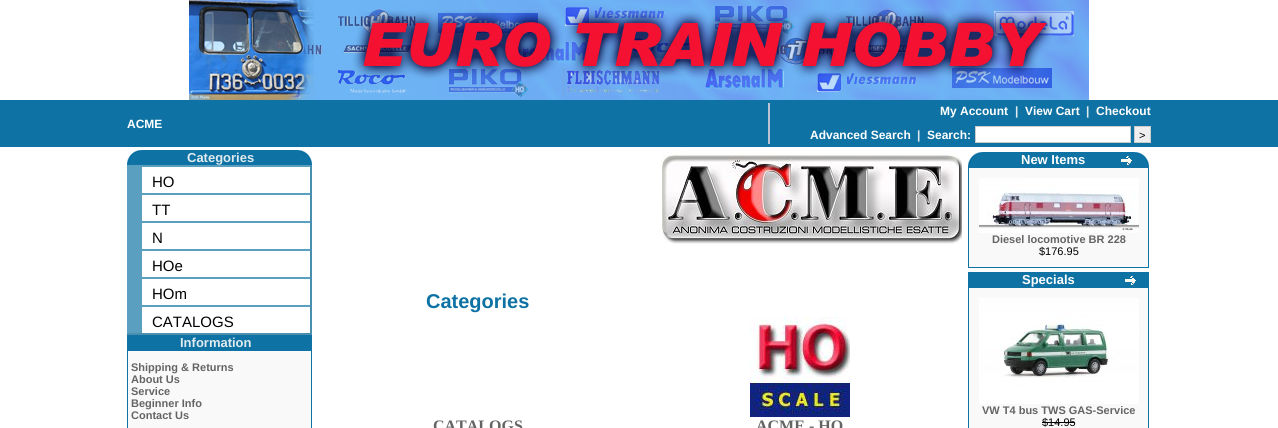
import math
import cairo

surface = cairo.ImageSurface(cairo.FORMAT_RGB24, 1278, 428)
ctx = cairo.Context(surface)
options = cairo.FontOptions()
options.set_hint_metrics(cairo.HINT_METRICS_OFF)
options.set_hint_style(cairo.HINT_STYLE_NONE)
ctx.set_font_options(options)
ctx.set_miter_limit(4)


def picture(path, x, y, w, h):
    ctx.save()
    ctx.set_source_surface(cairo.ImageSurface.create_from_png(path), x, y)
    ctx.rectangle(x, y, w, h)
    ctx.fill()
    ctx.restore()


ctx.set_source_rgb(1, 1, 1)
ctx.paint()
picture("img1.png", 189, 0, 900, 100)
ctx.set_source_rgb(0.055, 0.447, 0.643)
ctx.rectangle(0, 100, 1278, 47)
ctx.fill()
ctx.set_source_rgb(0.733, 0.765, 0.827)
ctx.rectangle(768, 103, 2, 41)
ctx.fill()
ctx.select_font_face("Liberation Sans", cairo.FONT_SLANT_NORMAL, cairo.FONT_WEIGHT_BOLD)
ctx.set_font_size(12)
ctx.set_source_rgb(1, 1, 1)
ctx.move_to(127, 128)
ctx.show_text("ACME")
ctx.move_to(940, 115)
ctx.show_text("My Account")
ctx.set_source_rgb(0.882, 0.918, 0.937)
ctx.move_to(1015, 115)
ctx.show_text("|")
ctx.set_source_rgb(1, 1, 1)
ctx.move_to(1025, 115)
ctx.show_text("View Cart")
ctx.set_source_rgb(0.882, 0.918, 0.937)
ctx.move_to(1086, 115)
ctx.show_text("|")
ctx.set_source_rgb(1, 1, 1)
ctx.move_to(1096, 115)
ctx.show_text("Checkout")
ctx.move_to(810, 139)
ctx.show_text("Advanced Search")
ctx.set_source_rgb(0.882, 0.918, 0.937)
ctx.move_to(917, 139)
ctx.show_text("|")
ctx.set_source_rgb(1, 1, 1)
ctx.move_to(927, 139)
ctx.show_text("Search:")
ctx.rectangle(975.5, 126.5, 155, 16)
ctx.fill_preserve()
ctx.set_source_rgb(0.8, 0.8, 0.8)
ctx.set_line_width(1)
ctx.stroke()
ctx.set_source_rgb(0.937, 0.937, 0.937)
ctx.rectangle(1134.5, 126.5, 16, 16)
ctx.fill_preserve()
ctx.set_source_rgb(0.8, 0.8, 0.8)
ctx.stroke()
ctx.select_font_face("Liberation Sans")
ctx.set_font_size(11)
ctx.set_source_rgb(0, 0, 0)
ctx.move_to(1139, 139)
ctx.show_text(">")
ctx.set_source_rgb(0.055, 0.447, 0.643)
ctx.rectangle(127, 164, 15, 1)
ctx.fill()
picture("img2.png", 127, 150, 15, 14)
ctx.rectangle(142, 150, 155, 15)
ctx.fill()
ctx.select_font_face("Liberation Sans", cairo.FONT_SLANT_NORMAL, cairo.FONT_WEIGHT_BOLD)
ctx.set_font_size(13)
ctx.set_source_rgb(0.882, 0.918, 0.937)
ctx.move_to(187, 162)
ctx.show_text("Categories")
ctx.set_source_rgb(0.055, 0.447, 0.643)
ctx.rectangle(297, 164, 15, 1)
ctx.fill()
picture("img3.png", 297, 150, 15, 14)
ctx.set_source_rgb(0.29, 0.557, 0.69)
ctx.rectangle(310, 165, 2, 170)
ctx.fill()
ctx.rectangle(127, 333, 185, 2)
ctx.fill()
ctx.set_source_rgb(0.353, 0.62, 0.753)
ctx.rectangle(142, 165, 168, 2)
ctx.fill()
ctx.rectangle(127, 165, 15, 168)
ctx.fill()
ctx.select_font_face("Liberation Sans")
ctx.set_font_size(15)
ctx.set_source_rgb(0, 0, 0)
ctx.move_to(152, 187)
ctx.show_text("HO")
ctx.set_source_rgb(0.353, 0.62, 0.753)
ctx.rectangle(142, 193, 168, 2)
ctx.fill()
ctx.set_source_rgb(0, 0, 0)
ctx.move_to(152, 215)
ctx.show_text("TT")
ctx.set_source_rgb(0.353, 0.62, 0.753)
ctx.rectangle(142, 221, 168, 2)
ctx.fill()
ctx.set_source_rgb(0, 0, 0)
ctx.move_to(152, 243)
ctx.show_text("N")
ctx.set_source_rgb(0.353, 0.62, 0.753)
ctx.rectangle(142, 249, 168, 2)
ctx.fill()
ctx.set_source_rgb(0, 0, 0)
ctx.move_to(152, 271)
ctx.show_text("HOe")
ctx.set_source_rgb(0.353, 0.62, 0.753)
ctx.rectangle(142, 277, 168, 2)
ctx.fill()
ctx.set_source_rgb(0, 0, 0)
ctx.move_to(152, 299)
ctx.show_text("HOm")
ctx.set_source_rgb(0.353, 0.62, 0.753)
ctx.rectangle(142, 305, 168, 2)
ctx.fill()
ctx.set_source_rgb(0, 0, 0)
ctx.move_to(152, 327)
ctx.show_text("CATALOGS")
ctx.set_source_rgb(0.055, 0.447, 0.643)
ctx.rectangle(127, 335, 185, 93)
ctx.fill()
ctx.select_font_face("Liberation Sans", cairo.FONT_SLANT_NORMAL, cairo.FONT_WEIGHT_BOLD)
ctx.set_font_size(13)
ctx.set_source_rgb(0.882, 0.918, 0.937)
ctx.move_to(180, 347)
ctx.show_text("Information")
ctx.set_source_rgb(0.973, 0.973, 0.976)
ctx.rectangle(128, 351, 183, 77)
ctx.fill()
ctx.set_font_size(11)
ctx.set_source_rgb(0.388, 0.396, 0.388)
ctx.move_to(131, 371)
ctx.show_text("Shipping & Returns")
ctx.move_to(131, 383)
ctx.show_text("About Us")
ctx.move_to(131, 395)
ctx.show_text("Service")
ctx.move_to(131, 407)
ctx.show_text("Beginner Info")
ctx.move_to(131, 419)
ctx.show_text("Contact Us")
picture("img4.png", 662, 150, 300, 94)
ctx.set_font_size(20)
ctx.set_source_rgb(0.055, 0.447, 0.643)
ctx.move_to(426, 308)
ctx.show_text("Categories")
ctx.select_font_face("Liberation Serif", cairo.FONT_SLANT_NORMAL, cairo.FONT_WEIGHT_BOLD)
ctx.set_font_size(16)
ctx.set_source_rgb(0.388, 0.396, 0.388)
ctx.move_to(433, 431)
ctx.show_text("CATALOGS")
picture("img5.png", 750, 317, 100, 100)
ctx.move_to(756, 431)
ctx.show_text("ACME - HO")
ctx.set_source_rgb(0.055, 0.447, 0.643)
ctx.rectangle(968, 166, 15, 1)
ctx.fill()
picture("img2.png", 968, 152, 15, 14)
ctx.rectangle(983, 152, 166, 15)
ctx.fill()
ctx.select_font_face("Liberation Sans", cairo.FONT_SLANT_NORMAL, cairo.FONT_WEIGHT_BOLD)
ctx.set_font_size(13)
ctx.set_source_rgb(1, 1, 1)
ctx.move_to(1021, 164)
ctx.show_text("New Items")
picture("img6.png", 1121, 156, 11, 9)
picture("img3.png", 1134, 152, 15, 14)
ctx.set_source_rgb(0.055, 0.447, 0.643)
ctx.rectangle(968, 167, 181, 101)
ctx.fill()
ctx.set_source_rgb(0.973, 0.973, 0.976)
ctx.rectangle(969, 168, 179, 99)
ctx.fill()
picture("img7.png", 979, 178, 160, 55)
ctx.set_font_size(11)
ctx.set_source_rgb(0.388, 0.396, 0.388)
ctx.move_to(992, 243)
ctx.show_text("Diesel locomotive BR 228")
ctx.select_font_face("Liberation Sans")
ctx.set_source_rgb(0, 0, 0)
ctx.move_to(1039, 255)
ctx.show_text("$176.95")
ctx.set_source_rgb(0.055, 0.447, 0.643)
ctx.rectangle(968, 272, 181, 156)
ctx.fill()
ctx.select_font_face("Liberation Sans", cairo.FONT_SLANT_NORMAL, cairo.FONT_WEIGHT_BOLD)
ctx.set_font_size(13)
ctx.set_source_rgb(1, 1, 1)
ctx.move_to(1022, 284)
ctx.show_text("Specials")
picture("img6.png", 1125, 276, 11, 9)
ctx.set_source_rgb(0.973, 0.973, 0.976)
ctx.rectangle(969, 288, 179, 140)
ctx.fill()
picture("img8.png", 979, 298, 160, 106)
ctx.set_font_size(11)
ctx.set_source_rgb(0.388, 0.396, 0.388)
ctx.move_to(982, 414)
ctx.show_text("VW T4 bus TWS GAS-Service")
ctx.select_font_face("Liberation Sans")
ctx.set_source_rgb(0, 0, 0)
ctx.move_to(1042, 426)
ctx.show_text("$14.95")
ctx.rectangle(1042, 422, 33, 1)
ctx.fill()
surface.write_to_png("page.png")
